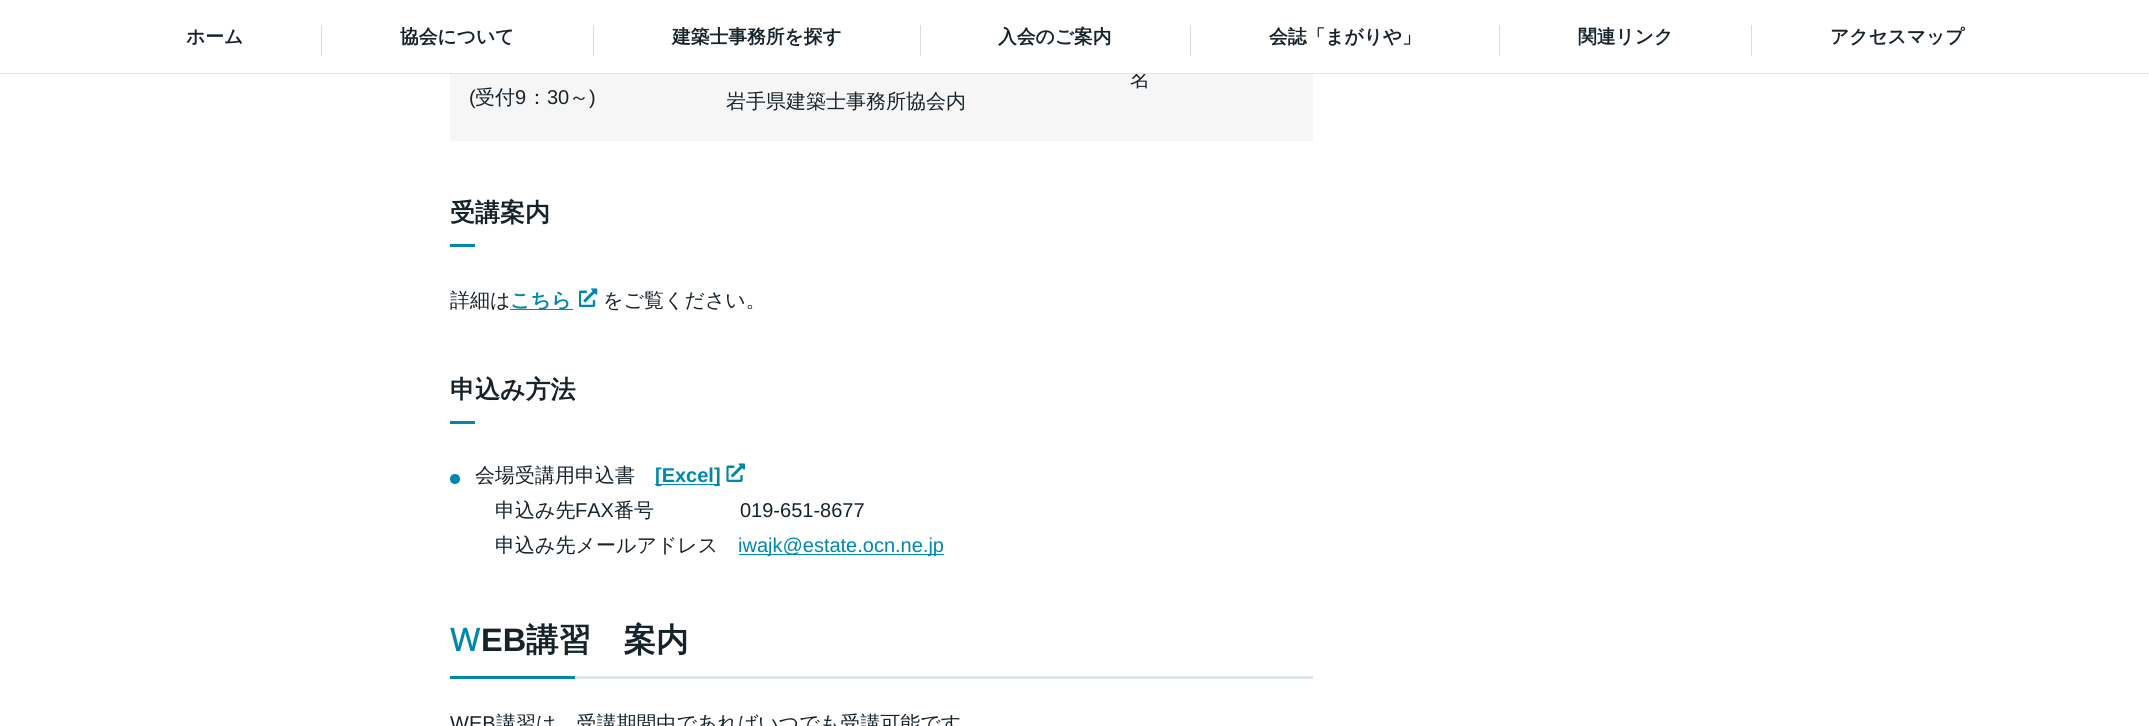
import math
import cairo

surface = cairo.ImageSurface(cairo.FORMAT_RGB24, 2149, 726)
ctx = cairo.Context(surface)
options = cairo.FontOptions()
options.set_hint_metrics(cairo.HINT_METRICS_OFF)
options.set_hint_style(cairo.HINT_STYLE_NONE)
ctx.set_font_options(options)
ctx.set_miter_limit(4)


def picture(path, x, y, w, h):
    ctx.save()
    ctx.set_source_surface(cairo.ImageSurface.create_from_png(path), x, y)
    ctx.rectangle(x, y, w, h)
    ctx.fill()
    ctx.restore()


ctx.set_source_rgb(1, 1, 1)
ctx.paint()
ctx.set_source_rgb(0.961, 0.961, 0.961)
ctx.rectangle(450, 74, 863, 67)
ctx.fill()
ctx.select_font_face("WenQuanYi Zen Hei Medium")
ctx.set_font_size(20)
ctx.set_source_rgb(0.09, 0.137, 0.169)
ctx.move_to(1130, 86)
ctx.show_text("名")
ctx.set_source_rgb(1, 1, 1)
ctx.rectangle(1137, 69, 10, 4)
ctx.fill()
ctx.set_source_rgb(0.863, 0.902, 0.902)
ctx.rectangle(0, 73, 2149, 1)
ctx.fill()
ctx.select_font_face("WenQuanYi Zen Hei", cairo.FONT_SLANT_NORMAL, cairo.FONT_WEIGHT_BOLD)
ctx.set_font_size(18.75)
ctx.set_source_rgb(0.09, 0.137, 0.169)
ctx.move_to(186, 43)
ctx.show_text("ホーム")
ctx.set_source_rgb(0.867, 0.867, 0.867)
ctx.rectangle(321, 25, 1, 31)
ctx.fill()
ctx.set_source_rgb(0.09, 0.137, 0.169)
ctx.move_to(400, 43)
ctx.show_text("協会について")
ctx.set_source_rgb(0.867, 0.867, 0.867)
ctx.rectangle(593, 25, 1, 31)
ctx.fill()
ctx.set_source_rgb(0.09, 0.137, 0.169)
ctx.move_to(672, 43)
ctx.show_text("建築士事務所を探す")
ctx.set_source_rgb(0.867, 0.867, 0.867)
ctx.rectangle(920, 25, 1, 31)
ctx.fill()
ctx.set_source_rgb(0.09, 0.137, 0.169)
ctx.move_to(998, 43)
ctx.show_text("入会のご案内")
ctx.set_source_rgb(0.867, 0.867, 0.867)
ctx.rectangle(1190, 25, 1, 31)
ctx.fill()
ctx.set_source_rgb(0.09, 0.137, 0.169)
ctx.move_to(1269, 43)
ctx.show_text("会誌「まがりや」")
ctx.set_source_rgb(0.867, 0.867, 0.867)
ctx.rectangle(1499, 25, 1, 31)
ctx.fill()
ctx.set_source_rgb(0.09, 0.137, 0.169)
ctx.move_to(1578, 43)
ctx.show_text("関連リンク")
ctx.set_source_rgb(0.867, 0.867, 0.867)
ctx.rectangle(1751, 25, 1, 31)
ctx.fill()
ctx.set_source_rgb(0.09, 0.137, 0.169)
ctx.move_to(1830, 43)
ctx.show_text("アクセスマップ")
ctx.select_font_face("Liberation Sans")
ctx.set_font_size(20)
ctx.move_to(469, 104)
ctx.show_text("(")
ctx.select_font_face("WenQuanYi Zen Hei Medium")
ctx.move_to(475, 104)
ctx.show_text("受付")
ctx.select_font_face("Liberation Sans")
ctx.move_to(515, 104)
ctx.show_text("9")
ctx.select_font_face("WenQuanYi Zen Hei Medium")
ctx.move_to(527, 104)
ctx.show_text("：")
ctx.select_font_face("Liberation Sans")
ctx.move_to(547, 104)
ctx.show_text("30")
ctx.select_font_face("WenQuanYi Zen Hei Medium")
ctx.move_to(569, 104)
ctx.show_text("～")
ctx.select_font_face("Liberation Sans")
ctx.move_to(589, 104)
ctx.show_text(")")
ctx.select_font_face("WenQuanYi Zen Hei Medium")
ctx.move_to(726, 108)
ctx.show_text("岩手県建築士事務所協会内")
ctx.select_font_face("WenQuanYi Zen Hei", cairo.FONT_SLANT_NORMAL, cairo.FONT_WEIGHT_BOLD)
ctx.set_font_size(25)
ctx.move_to(450, 221)
ctx.show_text("受講案内")
ctx.set_source_rgb(0, 0.529, 0.675)
ctx.rectangle(450, 244, 25, 3)
ctx.fill()
ctx.select_font_face("WenQuanYi Zen Hei Medium")
ctx.set_font_size(20)
ctx.set_source_rgb(0.09, 0.137, 0.169)
ctx.move_to(450, 307)
ctx.show_text("詳細は")
ctx.set_source_rgb(0, 0.529, 0.675)
ctx.rectangle(510, 309, 63, 1)
ctx.fill()
ctx.select_font_face("WenQuanYi Zen Hei", cairo.FONT_SLANT_NORMAL, cairo.FONT_WEIGHT_BOLD)
ctx.move_to(510, 307)
ctx.show_text("こちら")
picture("img1.png", 579, 288, 19, 19)
ctx.select_font_face("WenQuanYi Zen Hei Medium")
ctx.set_source_rgb(0.09, 0.137, 0.169)
ctx.move_to(603, 307)
ctx.show_text("をご覧ください。")
ctx.select_font_face("WenQuanYi Zen Hei", cairo.FONT_SLANT_NORMAL, cairo.FONT_WEIGHT_BOLD)
ctx.set_font_size(25)
ctx.move_to(450, 398)
ctx.show_text("申込み方法")
ctx.set_source_rgb(0, 0.529, 0.675)
ctx.rectangle(450, 421, 25, 3)
ctx.fill()
ctx.arc(455, 479, 5, 0, 2 * math.pi)
ctx.fill()
ctx.select_font_face("WenQuanYi Zen Hei Medium")
ctx.set_font_size(20)
ctx.set_source_rgb(0.09, 0.137, 0.169)
ctx.move_to(475, 482)
ctx.show_text("会場受講用申込書")
ctx.set_source_rgb(0, 0.529, 0.675)
ctx.rectangle(655, 484, 65, 1)
ctx.fill()
ctx.select_font_face("Liberation Sans", cairo.FONT_SLANT_NORMAL, cairo.FONT_WEIGHT_BOLD)
ctx.move_to(655, 482)
ctx.show_text("[Excel]")
picture("img2.png", 726, 463, 19, 19)
ctx.select_font_face("WenQuanYi Zen Hei Medium")
ctx.set_source_rgb(0.09, 0.137, 0.169)
ctx.move_to(495, 517)
ctx.show_text("申込み先")
ctx.select_font_face("Liberation Sans")
ctx.move_to(575, 517)
ctx.show_text("FAX")
ctx.select_font_face("WenQuanYi Zen Hei Medium")
ctx.move_to(614, 517)
ctx.show_text("番号")
ctx.select_font_face("Liberation Sans")
ctx.move_to(740, 517)
ctx.show_text("019-651-8677")
ctx.select_font_face("WenQuanYi Zen Hei Medium")
ctx.move_to(495, 552)
ctx.show_text("申込み先メールアドレス")
ctx.set_source_rgb(0, 0.529, 0.675)
ctx.rectangle(739, 554, 205, 1)
ctx.fill()
ctx.select_font_face("Liberation Sans")
ctx.move_to(738, 552)
ctx.show_text("iwajk@estate.ocn.ne.jp")
ctx.set_source_rgb(0.863, 0.902, 0.902)
ctx.rectangle(575, 676, 738, 3)
ctx.fill()
ctx.select_font_face("Noto Sans Medium")
ctx.set_font_size(32.5)
ctx.set_source_rgb(0, 0.529, 0.675)
ctx.move_to(450, 651)
ctx.show_text("W")
ctx.select_font_face("Liberation Sans", cairo.FONT_SLANT_NORMAL, cairo.FONT_WEIGHT_BOLD)
ctx.set_source_rgb(0.09, 0.137, 0.169)
ctx.move_to(481, 651)
ctx.show_text("EB")
ctx.select_font_face("WenQuanYi Zen Hei", cairo.FONT_SLANT_NORMAL, cairo.FONT_WEIGHT_BOLD)
ctx.move_to(526, 651)
ctx.show_text("講習　案内")
ctx.set_source_rgb(0, 0.529, 0.675)
ctx.rectangle(450, 676, 125, 3)
ctx.fill()
ctx.select_font_face("Liberation Sans")
ctx.set_font_size(20)
ctx.set_source_rgb(0.09, 0.137, 0.169)
ctx.move_to(450, 730)
ctx.show_text("WEB")
ctx.select_font_face("WenQuanYi Zen Hei Medium")
ctx.move_to(496, 730)
ctx.show_text("講習は、受講期間中であればいつでも受講可能です")
surface.write_to_png("page.png")
